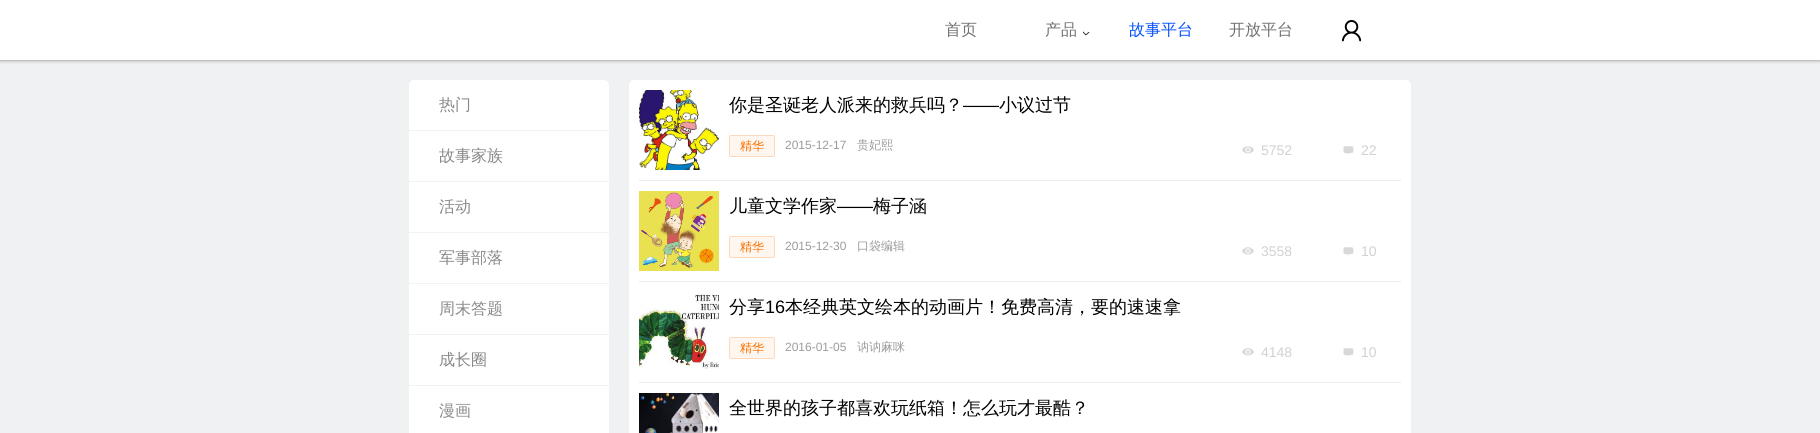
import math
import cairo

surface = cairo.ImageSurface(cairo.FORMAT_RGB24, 1820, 433)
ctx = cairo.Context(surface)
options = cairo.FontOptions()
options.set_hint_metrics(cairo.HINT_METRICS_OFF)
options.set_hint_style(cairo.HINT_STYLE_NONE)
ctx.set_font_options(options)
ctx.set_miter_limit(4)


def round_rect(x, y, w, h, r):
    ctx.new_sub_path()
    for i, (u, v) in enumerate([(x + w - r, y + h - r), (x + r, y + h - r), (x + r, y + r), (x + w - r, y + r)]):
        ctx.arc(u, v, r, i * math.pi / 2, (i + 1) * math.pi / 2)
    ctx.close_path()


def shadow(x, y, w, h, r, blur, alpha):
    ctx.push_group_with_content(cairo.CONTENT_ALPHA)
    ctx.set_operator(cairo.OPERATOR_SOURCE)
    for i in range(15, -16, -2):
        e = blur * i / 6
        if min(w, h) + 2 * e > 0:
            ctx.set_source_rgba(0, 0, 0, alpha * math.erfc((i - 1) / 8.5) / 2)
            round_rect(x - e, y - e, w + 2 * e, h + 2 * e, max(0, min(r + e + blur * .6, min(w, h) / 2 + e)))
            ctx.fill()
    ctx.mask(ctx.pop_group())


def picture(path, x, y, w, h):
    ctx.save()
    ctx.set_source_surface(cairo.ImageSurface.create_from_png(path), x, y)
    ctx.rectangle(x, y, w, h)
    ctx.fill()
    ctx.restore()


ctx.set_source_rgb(0.937, 0.945, 0.953)
ctx.paint()
ctx.set_source_rgb(0, 0, 0)
shadow(0, 0, 1820, 60, 0, 2, 0.5)
ctx.set_source_rgb(1, 1, 1)
ctx.rectangle(0, 0, 1820, 60)
ctx.fill()
ctx.select_font_face("WenQuanYi Zen Hei Medium")
ctx.set_font_size(16)
ctx.set_source_rgb(0.439, 0.439, 0.439)
ctx.move_to(945, 35)
ctx.show_text("首页")
ctx.move_to(1045, 35)
ctx.show_text("产品")
picture("img1.png", 1083, 31, 7, 5)
ctx.set_source_rgb(0.008, 0.31, 1)
ctx.move_to(1129, 35)
ctx.show_text("故事平台")
ctx.set_source_rgb(0.439, 0.439, 0.439)
ctx.move_to(1229, 35)
ctx.show_text("开放平台")
picture("img2.png", 1341, 20, 20, 22)
ctx.set_source_rgb(1, 1, 1)
round_rect(409, 80, 200, 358, 5)
ctx.fill()
ctx.set_source_rgb(0.949, 0.949, 0.949)
ctx.rectangle(409, 130, 200, 1)
ctx.fill()
ctx.set_source_rgb(0.537, 0.537, 0.537)
ctx.move_to(439, 110)
ctx.show_text("热门")
ctx.set_source_rgb(0.949, 0.949, 0.949)
ctx.rectangle(409, 181, 200, 1)
ctx.fill()
ctx.set_source_rgb(0.537, 0.537, 0.537)
ctx.move_to(439, 161)
ctx.show_text("故事家族")
ctx.set_source_rgb(0.949, 0.949, 0.949)
ctx.rectangle(409, 232, 200, 1)
ctx.fill()
ctx.set_source_rgb(0.537, 0.537, 0.537)
ctx.move_to(439, 212)
ctx.show_text("活动")
ctx.set_source_rgb(0.949, 0.949, 0.949)
ctx.rectangle(409, 283, 200, 1)
ctx.fill()
ctx.set_source_rgb(0.537, 0.537, 0.537)
ctx.move_to(439, 263)
ctx.show_text("军事部落")
ctx.set_source_rgb(0.949, 0.949, 0.949)
ctx.rectangle(409, 334, 200, 1)
ctx.fill()
ctx.set_source_rgb(0.537, 0.537, 0.537)
ctx.move_to(439, 314)
ctx.show_text("周末答题")
ctx.set_source_rgb(0.949, 0.949, 0.949)
ctx.rectangle(409, 385, 200, 1)
ctx.fill()
ctx.set_source_rgb(0.537, 0.537, 0.537)
ctx.move_to(439, 365)
ctx.show_text("成长圈")
ctx.move_to(439, 416)
ctx.show_text("漫画")
ctx.set_source_rgb(1, 1, 1)
round_rect(629, 80, 782, 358, 5)
ctx.fill()
ctx.set_source_rgb(0.925, 0.925, 0.941)
ctx.rectangle(639, 180, 762, 1)
ctx.fill()
picture("img3.png", 639, 90, 80, 80)
ctx.set_font_size(18)
ctx.set_source_rgb(0, 0, 0)
ctx.move_to(729, 111)
ctx.show_text("你是圣诞老人派来的救兵吗？")
ctx.select_font_face("Liberation Sans")
ctx.move_to(963, 111)
ctx.show_text("——")
ctx.select_font_face("WenQuanYi Zen Hei Medium")
ctx.move_to(999, 111)
ctx.show_text("小议过节")
ctx.set_source_rgb(1, 0.965, 0.937)
round_rect(729.5, 135.5, 45, 21, 1.5)
ctx.fill_preserve()
ctx.set_source_rgb(1, 0.847, 0.725)
ctx.set_line_width(1)
ctx.stroke()
ctx.set_font_size(12)
ctx.set_source_rgb(0.973, 0.435, 0)
ctx.move_to(740, 150)
ctx.show_text("精华")
ctx.select_font_face("Liberation Sans")
ctx.set_source_rgb(0.608, 0.608, 0.608)
ctx.move_to(785, 149)
ctx.show_text("2015-12-17")
ctx.select_font_face("WenQuanYi Zen Hei Medium")
ctx.move_to(857, 149)
ctx.show_text("贵妃熙")
picture("img4.png", 1242, 146, 12, 8)
ctx.select_font_face("Liberation Sans")
ctx.set_font_size(14)
ctx.set_source_rgb(0.82, 0.82, 0.82)
ctx.move_to(1261, 155)
ctx.show_text("5752")
picture("img5.png", 1343, 146, 11, 9)
ctx.move_to(1361, 155)
ctx.show_text("22")
ctx.set_source_rgb(0.925, 0.925, 0.941)
ctx.rectangle(639, 281, 762, 1)
ctx.fill()
picture("img6.png", 639, 191, 80, 80)
ctx.select_font_face("WenQuanYi Zen Hei Medium")
ctx.set_font_size(18)
ctx.set_source_rgb(0, 0, 0)
ctx.move_to(729, 212)
ctx.show_text("儿童文学作家")
ctx.select_font_face("Liberation Sans")
ctx.move_to(837, 212)
ctx.show_text("——")
ctx.select_font_face("WenQuanYi Zen Hei Medium")
ctx.move_to(873, 212)
ctx.show_text("梅子涵")
ctx.set_source_rgb(1, 0.965, 0.937)
round_rect(729.5, 236.5, 45, 21, 1.5)
ctx.fill_preserve()
ctx.set_source_rgb(1, 0.847, 0.725)
ctx.stroke()
ctx.set_font_size(12)
ctx.set_source_rgb(0.973, 0.435, 0)
ctx.move_to(740, 251)
ctx.show_text("精华")
ctx.select_font_face("Liberation Sans")
ctx.set_source_rgb(0.608, 0.608, 0.608)
ctx.move_to(785, 250)
ctx.show_text("2015-12-30")
ctx.select_font_face("WenQuanYi Zen Hei Medium")
ctx.move_to(857, 250)
ctx.show_text("口袋编辑")
picture("img4.png", 1242, 247, 12, 8)
ctx.select_font_face("Liberation Sans")
ctx.set_font_size(14)
ctx.set_source_rgb(0.82, 0.82, 0.82)
ctx.move_to(1261, 256)
ctx.show_text("3558")
picture("img5.png", 1343, 247, 11, 9)
ctx.move_to(1361, 256)
ctx.show_text("10")
ctx.set_source_rgb(0.925, 0.925, 0.941)
ctx.rectangle(639, 382, 762, 1)
ctx.fill()
picture("img7.png", 639, 294, 80, 75)
ctx.select_font_face("WenQuanYi Zen Hei Medium")
ctx.set_font_size(18)
ctx.set_source_rgb(0, 0, 0)
ctx.move_to(729, 313)
ctx.show_text("分享")
ctx.select_font_face("Liberation Sans")
ctx.move_to(765, 313)
ctx.show_text("16")
ctx.select_font_face("WenQuanYi Zen Hei Medium")
ctx.move_to(785, 313)
ctx.show_text("本经典英文绘本的动画片！免费高清，要的速速拿")
ctx.set_source_rgb(1, 0.965, 0.937)
round_rect(729.5, 337.5, 45, 21, 1.5)
ctx.fill_preserve()
ctx.set_source_rgb(1, 0.847, 0.725)
ctx.stroke()
ctx.set_font_size(12)
ctx.set_source_rgb(0.973, 0.435, 0)
ctx.move_to(740, 352)
ctx.show_text("精华")
ctx.select_font_face("Liberation Sans")
ctx.set_source_rgb(0.608, 0.608, 0.608)
ctx.move_to(785, 351)
ctx.show_text("2016-01-05")
ctx.select_font_face("WenQuanYi Zen Hei Medium")
ctx.move_to(857, 351)
ctx.show_text("讷讷麻咪")
picture("img4.png", 1242, 348, 12, 8)
ctx.select_font_face("Liberation Sans")
ctx.set_font_size(14)
ctx.set_source_rgb(0.82, 0.82, 0.82)
ctx.move_to(1261, 357)
ctx.show_text("4148")
picture("img5.png", 1343, 348, 11, 9)
ctx.move_to(1361, 357)
ctx.show_text("10")
picture("img8.png", 639, 393, 80, 40)
ctx.select_font_face("WenQuanYi Zen Hei Medium")
ctx.set_font_size(18)
ctx.set_source_rgb(0, 0, 0)
ctx.move_to(729, 414)
ctx.show_text("全世界的孩子都喜欢玩纸箱！怎么玩才最酷？")
surface.write_to_png("page.png")
